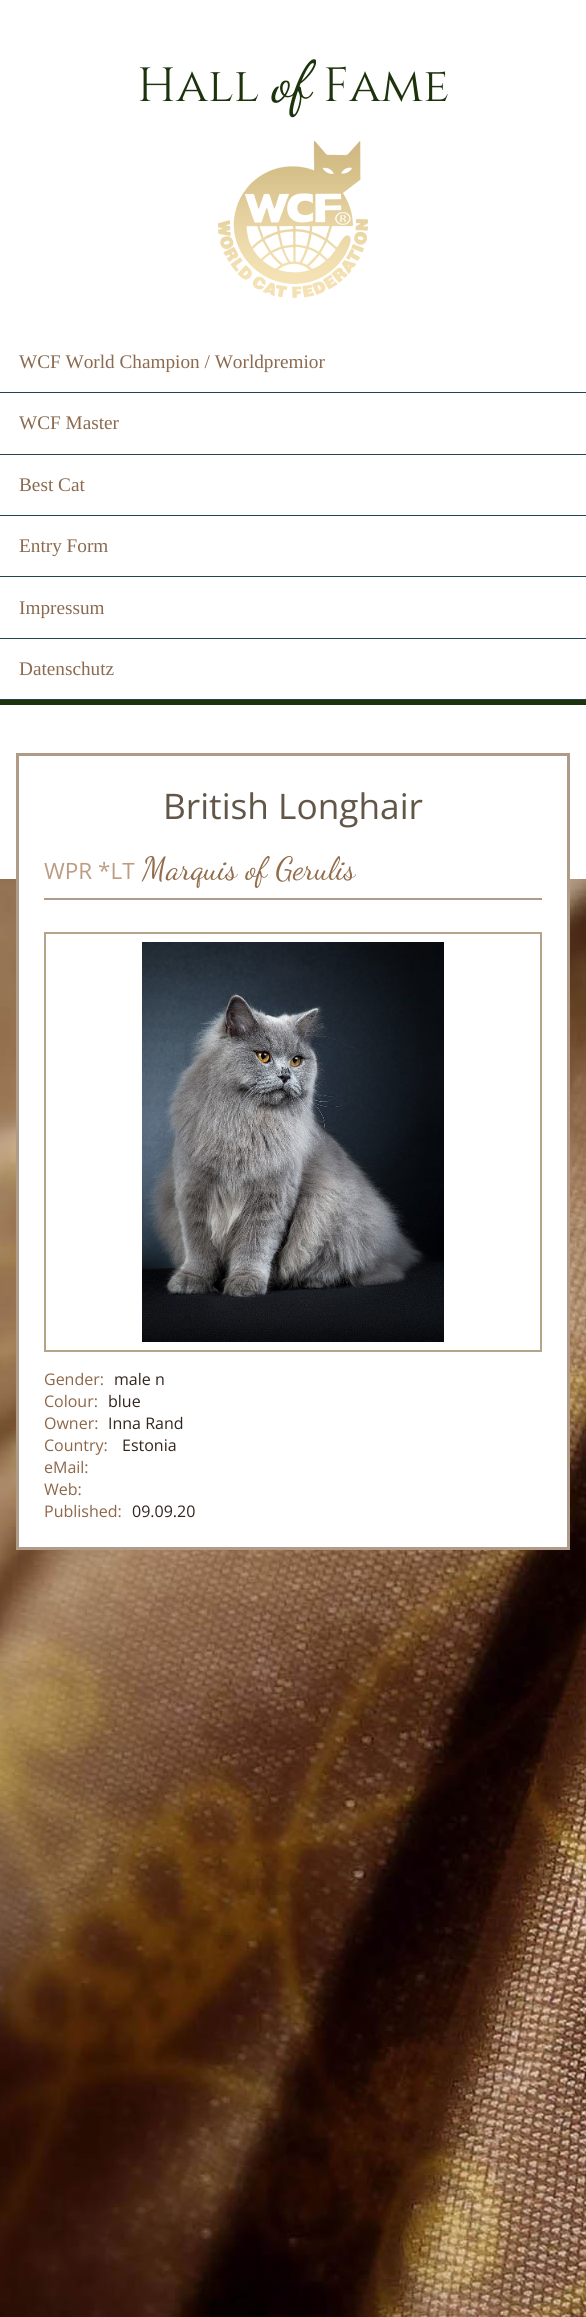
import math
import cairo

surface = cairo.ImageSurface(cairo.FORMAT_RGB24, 586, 2317)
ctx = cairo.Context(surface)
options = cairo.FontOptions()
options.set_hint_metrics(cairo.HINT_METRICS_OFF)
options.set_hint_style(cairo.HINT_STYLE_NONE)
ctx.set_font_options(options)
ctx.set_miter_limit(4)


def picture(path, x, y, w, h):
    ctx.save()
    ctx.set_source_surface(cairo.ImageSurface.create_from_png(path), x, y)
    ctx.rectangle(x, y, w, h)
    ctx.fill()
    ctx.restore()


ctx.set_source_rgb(1, 1, 1)
ctx.paint()
picture("img1.png", 0, 879, 586, 1438)
ctx.select_font_face("Cinzel")
ctx.set_font_size(48)
ctx.set_source_rgb(0.114, 0.2, 0.047)
ctx.move_to(137, 101)
ctx.show_text("Hall")
ctx.select_font_face("Dancing Script")
ctx.set_font_size(58)
ctx.move_to(272, 101)
ctx.show_text("of")
ctx.select_font_face("Cinzel")
ctx.set_font_size(48)
ctx.move_to(323, 101)
ctx.show_text("Fame")
picture("img2.png", 218, 141, 150, 157)
ctx.set_source_rgb(0.129, 0.267, 0.337)
ctx.rectangle(0, 392, 586, 1)
ctx.fill()
ctx.select_font_face("Liberation Serif")
ctx.set_font_size(19.25)
ctx.set_source_rgb(0.549, 0.416, 0.31)
ctx.move_to(19, 368)
ctx.show_text("WCF World Champion / Worldpremior")
ctx.set_source_rgb(0.129, 0.267, 0.337)
ctx.rectangle(0, 454, 586, 1)
ctx.fill()
ctx.set_source_rgb(0.549, 0.416, 0.31)
ctx.move_to(19, 429)
ctx.show_text("WCF Master")
ctx.set_source_rgb(0.129, 0.267, 0.337)
ctx.rectangle(0, 515, 586, 1)
ctx.fill()
ctx.set_source_rgb(0.549, 0.416, 0.31)
ctx.move_to(19, 491)
ctx.show_text("Best Cat")
ctx.set_source_rgb(0.129, 0.267, 0.337)
ctx.rectangle(0, 576, 586, 1)
ctx.fill()
ctx.set_source_rgb(0.549, 0.416, 0.31)
ctx.move_to(19, 552)
ctx.show_text("Entry Form")
ctx.set_source_rgb(0.129, 0.267, 0.337)
ctx.rectangle(0, 638, 586, 1)
ctx.fill()
ctx.set_source_rgb(0.549, 0.416, 0.31)
ctx.move_to(19, 614)
ctx.show_text("Impressum")
ctx.set_source_rgb(0.129, 0.267, 0.337)
ctx.rectangle(0, 699, 586, 1)
ctx.fill()
ctx.set_source_rgb(0.549, 0.416, 0.31)
ctx.move_to(19, 675)
ctx.show_text("Datenschutz")
ctx.set_source_rgb(0.114, 0.2, 0.047)
ctx.rectangle(0, 700, 586, 5)
ctx.fill()
ctx.set_source_rgb(1, 1, 1)
ctx.rectangle(19, 879, 548, 668)
ctx.fill()
ctx.rectangle(17.5, 754.5, 551, 794)
ctx.set_source_rgb(0.69, 0.604, 0.533)
ctx.set_line_width(3)
ctx.stroke()
ctx.select_font_face("Open Sans")
ctx.set_font_size(35.25)
ctx.set_source_rgb(0.384, 0.337, 0.282)
ctx.move_to(163, 819)
ctx.show_text("British Longhair")
ctx.set_source_rgb(0.69, 0.604, 0.533)
ctx.rectangle(44, 898, 498, 2)
ctx.fill()
ctx.set_font_size(22.5)
ctx.set_source_rgb(0.737, 0.612, 0.514)
ctx.move_to(44, 879)
ctx.show_text("WPR *LT")
ctx.select_font_face("Dancing Script")
ctx.set_font_size(32)
ctx.set_source_rgb(0.573, 0.427, 0.298)
ctx.move_to(142, 879)
ctx.show_text("Marquis of Gerulis")
ctx.rectangle(45, 933, 496, 418)
ctx.set_source_rgb(0.71, 0.639, 0.549)
ctx.set_line_width(2)
ctx.stroke()
picture("img3.png", 142, 942, 302, 400)
ctx.select_font_face("Open Sans")
ctx.set_font_size(16)
ctx.set_source_rgb(0.553, 0.4, 0.282)
ctx.move_to(44, 1385)
ctx.show_text("Gender:")
ctx.set_source_rgb(0.196, 0.145, 0.11)
ctx.move_to(114, 1385)
ctx.show_text("male n")
ctx.set_source_rgb(0.553, 0.4, 0.282)
ctx.move_to(44, 1407)
ctx.show_text("Colour:")
ctx.set_source_rgb(0.196, 0.145, 0.11)
ctx.move_to(108, 1407)
ctx.show_text("blue")
ctx.set_source_rgb(0.553, 0.4, 0.282)
ctx.move_to(44, 1429)
ctx.show_text("Owner:")
ctx.set_source_rgb(0.196, 0.145, 0.11)
ctx.move_to(108, 1429)
ctx.show_text("Inna Rand")
ctx.set_source_rgb(0.553, 0.4, 0.282)
ctx.move_to(44, 1451)
ctx.show_text("Country:")
ctx.set_source_rgb(0.196, 0.145, 0.11)
ctx.move_to(122, 1451)
ctx.show_text("Estonia")
ctx.set_source_rgb(0.553, 0.4, 0.282)
ctx.move_to(44, 1473)
ctx.show_text("eMail:")
ctx.move_to(44, 1495)
ctx.show_text("Web:")
ctx.move_to(44, 1517)
ctx.show_text("Published:")
ctx.set_source_rgb(0.196, 0.145, 0.11)
ctx.move_to(132, 1517)
ctx.show_text("09.09.20")
surface.write_to_png("page.png")
